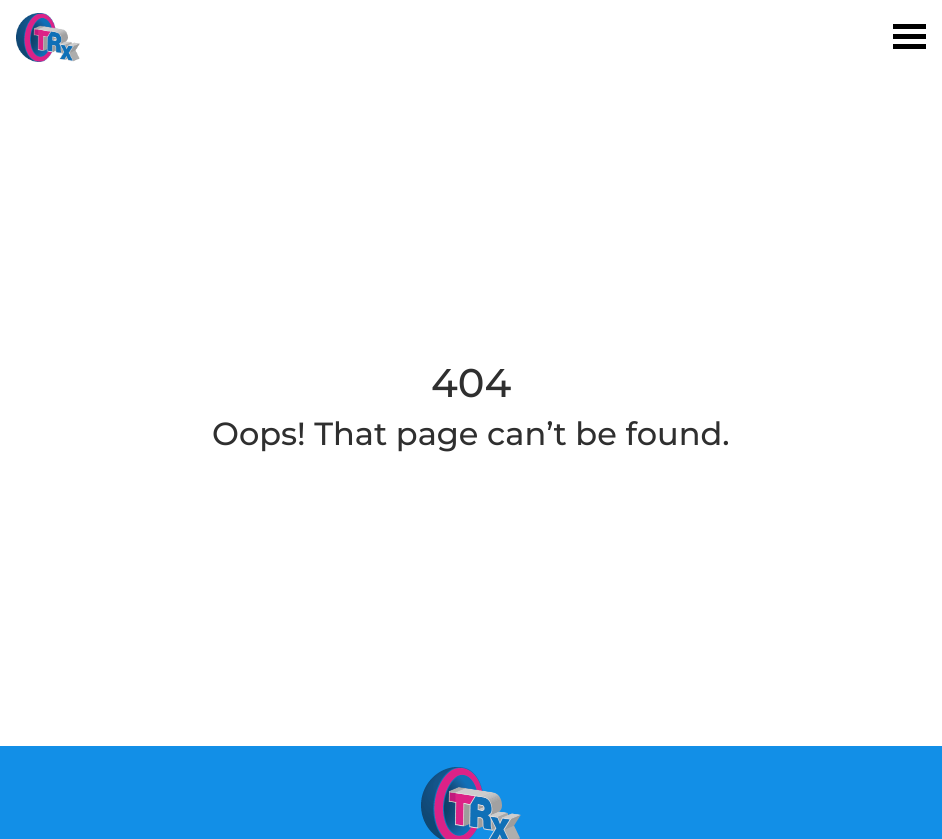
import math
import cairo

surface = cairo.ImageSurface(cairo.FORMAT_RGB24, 942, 839)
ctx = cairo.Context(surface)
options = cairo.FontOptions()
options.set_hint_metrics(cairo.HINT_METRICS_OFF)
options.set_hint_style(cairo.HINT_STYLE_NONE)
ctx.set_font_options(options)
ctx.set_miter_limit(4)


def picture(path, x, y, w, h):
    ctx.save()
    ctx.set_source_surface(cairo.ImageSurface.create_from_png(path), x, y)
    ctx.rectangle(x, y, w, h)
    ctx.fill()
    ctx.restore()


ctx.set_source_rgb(1, 1, 1)
ctx.paint()
picture("img1.png", 16, 13, 64, 49)
ctx.set_source_rgb(0, 0, 0)
ctx.rectangle(893, 24, 33, 5)
ctx.fill()
ctx.rectangle(893, 34, 33, 5)
ctx.fill()
ctx.rectangle(893, 44, 33, 5)
ctx.fill()
ctx.select_font_face("Montserrat Medium")
ctx.set_font_size(40)
ctx.set_source_rgb(0.184, 0.184, 0.184)
ctx.move_to(431, 397)
ctx.show_text("404")
ctx.set_font_size(32)
ctx.move_to(212, 445)
ctx.show_text("Oops! That page can’t be found.")
ctx.set_source_rgb(0.071, 0.561, 0.906)
ctx.rectangle(0, 746, 942, 93)
ctx.fill()
picture("img2.png", 421, 767, 100, 72)
surface.write_to_png("page.png")
